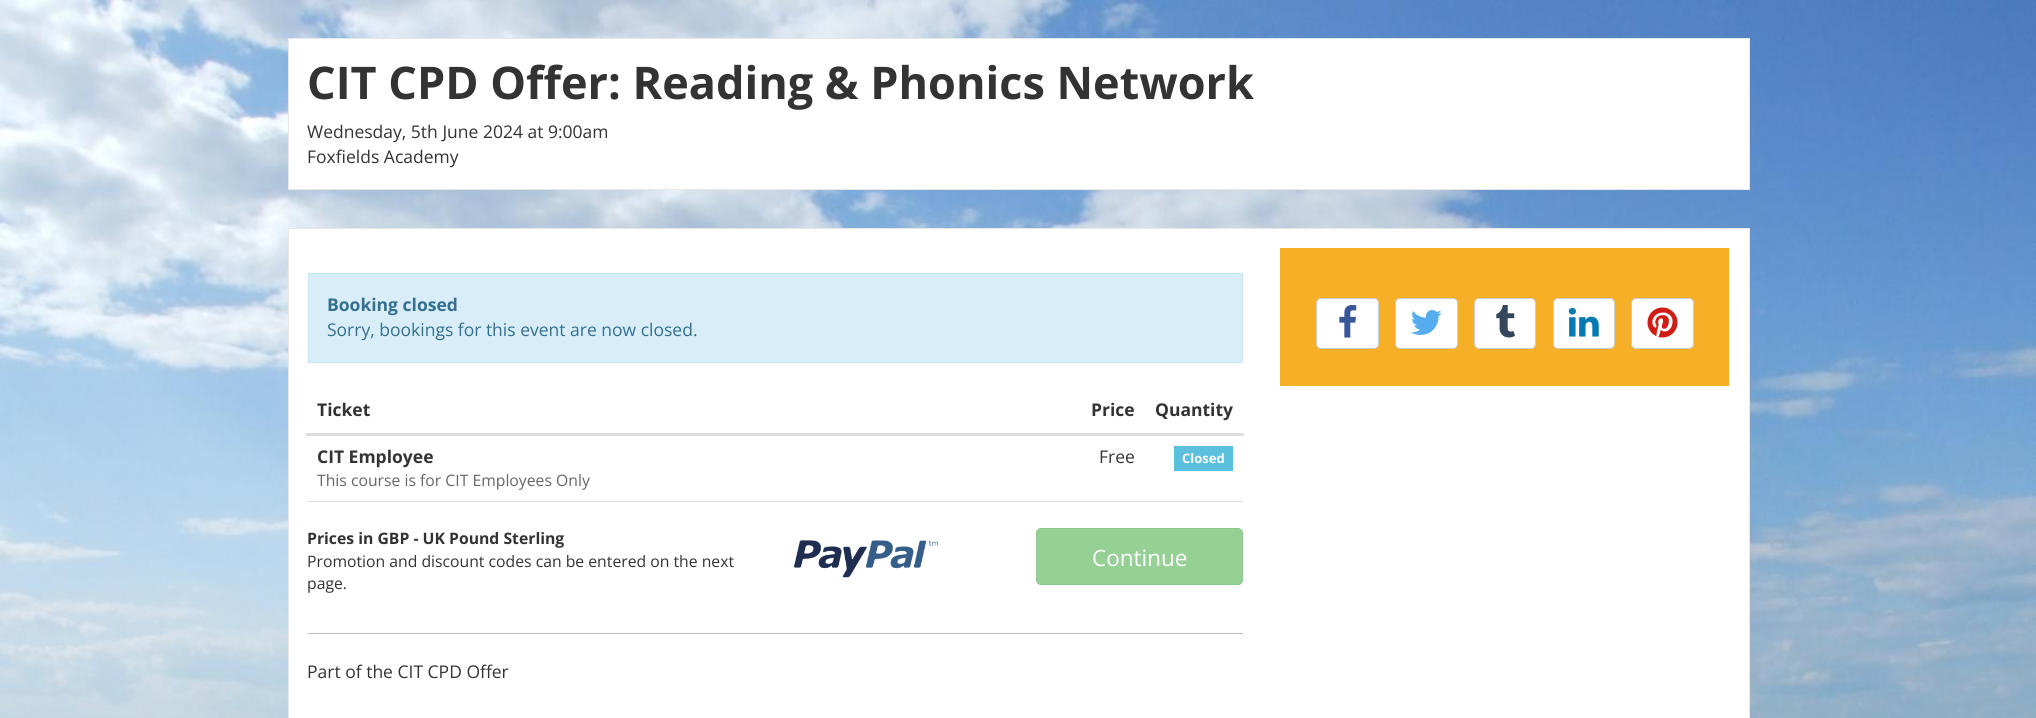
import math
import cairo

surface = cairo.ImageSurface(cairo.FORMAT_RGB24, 2036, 718)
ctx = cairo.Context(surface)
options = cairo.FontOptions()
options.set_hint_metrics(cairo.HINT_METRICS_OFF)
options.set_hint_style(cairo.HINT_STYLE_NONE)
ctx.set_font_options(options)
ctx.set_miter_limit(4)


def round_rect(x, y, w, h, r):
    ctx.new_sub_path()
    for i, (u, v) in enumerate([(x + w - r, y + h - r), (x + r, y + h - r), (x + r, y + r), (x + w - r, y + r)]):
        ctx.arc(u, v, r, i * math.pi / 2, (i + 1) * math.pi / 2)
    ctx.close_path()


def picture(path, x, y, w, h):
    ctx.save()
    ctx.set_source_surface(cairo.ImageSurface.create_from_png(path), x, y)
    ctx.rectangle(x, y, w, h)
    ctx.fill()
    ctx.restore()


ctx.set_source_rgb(1, 1, 1)
ctx.paint()
picture("img1.png", 0, 0, 2036, 718)
ctx.set_source_rgb(1, 1, 1)
ctx.rectangle(288.5, 38.5, 1461, 151)
ctx.fill_preserve()
ctx.set_source_rgb(0.91, 0.91, 0.91)
ctx.set_line_width(1)
ctx.stroke()
ctx.select_font_face("Open Sans", cairo.FONT_SLANT_NORMAL, cairo.FONT_WEIGHT_BOLD)
ctx.set_font_size(45)
ctx.set_source_rgb(0.2, 0.2, 0.2)
ctx.move_to(307, 99)
ctx.show_text("CIT CPD Offer: Reading & Phonics Network")
ctx.select_font_face("Open Sans")
ctx.set_font_size(17.5)
ctx.move_to(307, 138)
ctx.show_text("Wednesday, 5th June 2024 at 9:00am")
ctx.move_to(307, 163)
ctx.show_text("Foxfields Academy")
ctx.set_source_rgb(1, 1, 1)
ctx.rectangle(288.5, 228.5, 1461, 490)
ctx.fill_preserve()
ctx.set_source_rgb(0.91, 0.91, 0.91)
ctx.stroke()
ctx.set_source_rgb(0.851, 0.929, 0.969)
ctx.rectangle(308.5, 273.5, 934, 89)
ctx.fill_preserve()
ctx.set_source_rgb(0.737, 0.91, 0.945)
ctx.stroke()
ctx.select_font_face("Open Sans", cairo.FONT_SLANT_NORMAL, cairo.FONT_WEIGHT_BOLD)
ctx.set_source_rgb(0.192, 0.439, 0.561)
ctx.move_to(327, 311)
ctx.show_text("Booking closed")
ctx.select_font_face("Open Sans")
ctx.move_to(327, 336)
ctx.show_text("Sorry, bookings for this event are now closed.")
ctx.set_source_rgb(0.867, 0.867, 0.867)
ctx.rectangle(308, 501, 935, 1)
ctx.fill()
ctx.select_font_face("Open Sans", cairo.FONT_SLANT_NORMAL, cairo.FONT_WEIGHT_BOLD)
ctx.set_source_rgb(0.2, 0.2, 0.2)
ctx.move_to(317, 416)
ctx.show_text("Ticket")
ctx.move_to(1091, 416)
ctx.show_text("Price")
ctx.set_source_rgb(0.867, 0.867, 0.867)
ctx.rectangle(306, 433, 938, 3)
ctx.fill()
ctx.set_source_rgb(0.2, 0.2, 0.2)
ctx.move_to(1155, 416)
ctx.show_text("Quantity")
ctx.move_to(317, 463)
ctx.show_text("CIT Employee")
ctx.select_font_face("Open Sans")
ctx.move_to(1099, 463)
ctx.show_text("Free")
ctx.set_source_rgb(0.357, 0.753, 0.871)
ctx.rectangle(1174, 446, 59, 25)
ctx.fill()
ctx.select_font_face("Open Sans", cairo.FONT_SLANT_NORMAL, cairo.FONT_WEIGHT_BOLD)
ctx.set_font_size(13)
ctx.set_source_rgb(1, 1, 1)
ctx.move_to(1182, 463)
ctx.show_text("Closed")
ctx.select_font_face("Open Sans")
ctx.set_font_size(15.75)
ctx.set_source_rgb(0.4, 0.4, 0.4)
ctx.move_to(317, 486)
ctx.show_text("This course is for CIT Employees Only")
ctx.select_font_face("Open Sans", cairo.FONT_SLANT_NORMAL, cairo.FONT_WEIGHT_BOLD)
ctx.set_source_rgb(0.2, 0.2, 0.2)
ctx.move_to(307, 544)
ctx.show_text("Prices in GBP - UK Pound Sterling")
ctx.select_font_face("Open Sans")
ctx.move_to(307, 567)
ctx.show_text("Promotion and discount codes can be entered on the next")
ctx.move_to(307, 589)
ctx.show_text("page.")
picture("img2.png", 793, 540, 145, 38)
ctx.set_source_rgb(0.584, 0.82, 0.584)
round_rect(1036.5, 528.5, 206, 56, 4.5)
ctx.fill_preserve()
ctx.set_source_rgb(0.545, 0.792, 0.545)
ctx.stroke()
ctx.set_font_size(22.5)
ctx.set_source_rgb(1, 1, 1)
ctx.move_to(1092, 566)
ctx.show_text("Continue")
ctx.set_source_rgb(0.733, 0.733, 0.733)
ctx.rectangle(308, 633, 935, 1)
ctx.fill()
ctx.set_font_size(17.5)
ctx.set_source_rgb(0.2, 0.2, 0.2)
ctx.move_to(307, 678)
ctx.show_text("Part of the CIT CPD Offer")
ctx.set_source_rgb(0.965, 0.686, 0.153)
ctx.rectangle(1280, 248, 449, 138)
ctx.fill()
ctx.set_source_rgb(1, 1, 1)
round_rect(1316.5, 298.5, 62, 50, 4.5)
ctx.fill_preserve()
ctx.set_source_rgb(0.8, 0.8, 0.8)
ctx.stroke()
picture("img3.png", 1339, 305, 18, 33)
ctx.set_source_rgb(1, 1, 1)
round_rect(1395.5, 298.5, 62, 50, 4.5)
ctx.fill_preserve()
ctx.set_source_rgb(0.8, 0.8, 0.8)
ctx.stroke()
picture("img4.png", 1411, 310, 31, 25)
ctx.set_source_rgb(1, 1, 1)
round_rect(1474.5, 298.5, 61, 50, 4.5)
ctx.fill_preserve()
ctx.set_source_rgb(0.8, 0.8, 0.8)
ctx.stroke()
picture("img5.png", 1496, 305, 19, 33)
ctx.set_source_rgb(1, 1, 1)
round_rect(1553.5, 298.5, 61, 50, 4.5)
ctx.fill_preserve()
ctx.set_source_rgb(0.8, 0.8, 0.8)
ctx.stroke()
picture("img6.png", 1568, 307, 31, 30)
ctx.set_source_rgb(1, 1, 1)
round_rect(1631.5, 298.5, 62, 50, 4.5)
ctx.fill_preserve()
ctx.set_source_rgb(0.8, 0.8, 0.8)
ctx.stroke()
picture("img7.png", 1647, 307, 31, 31)
surface.write_to_png("page.png")
